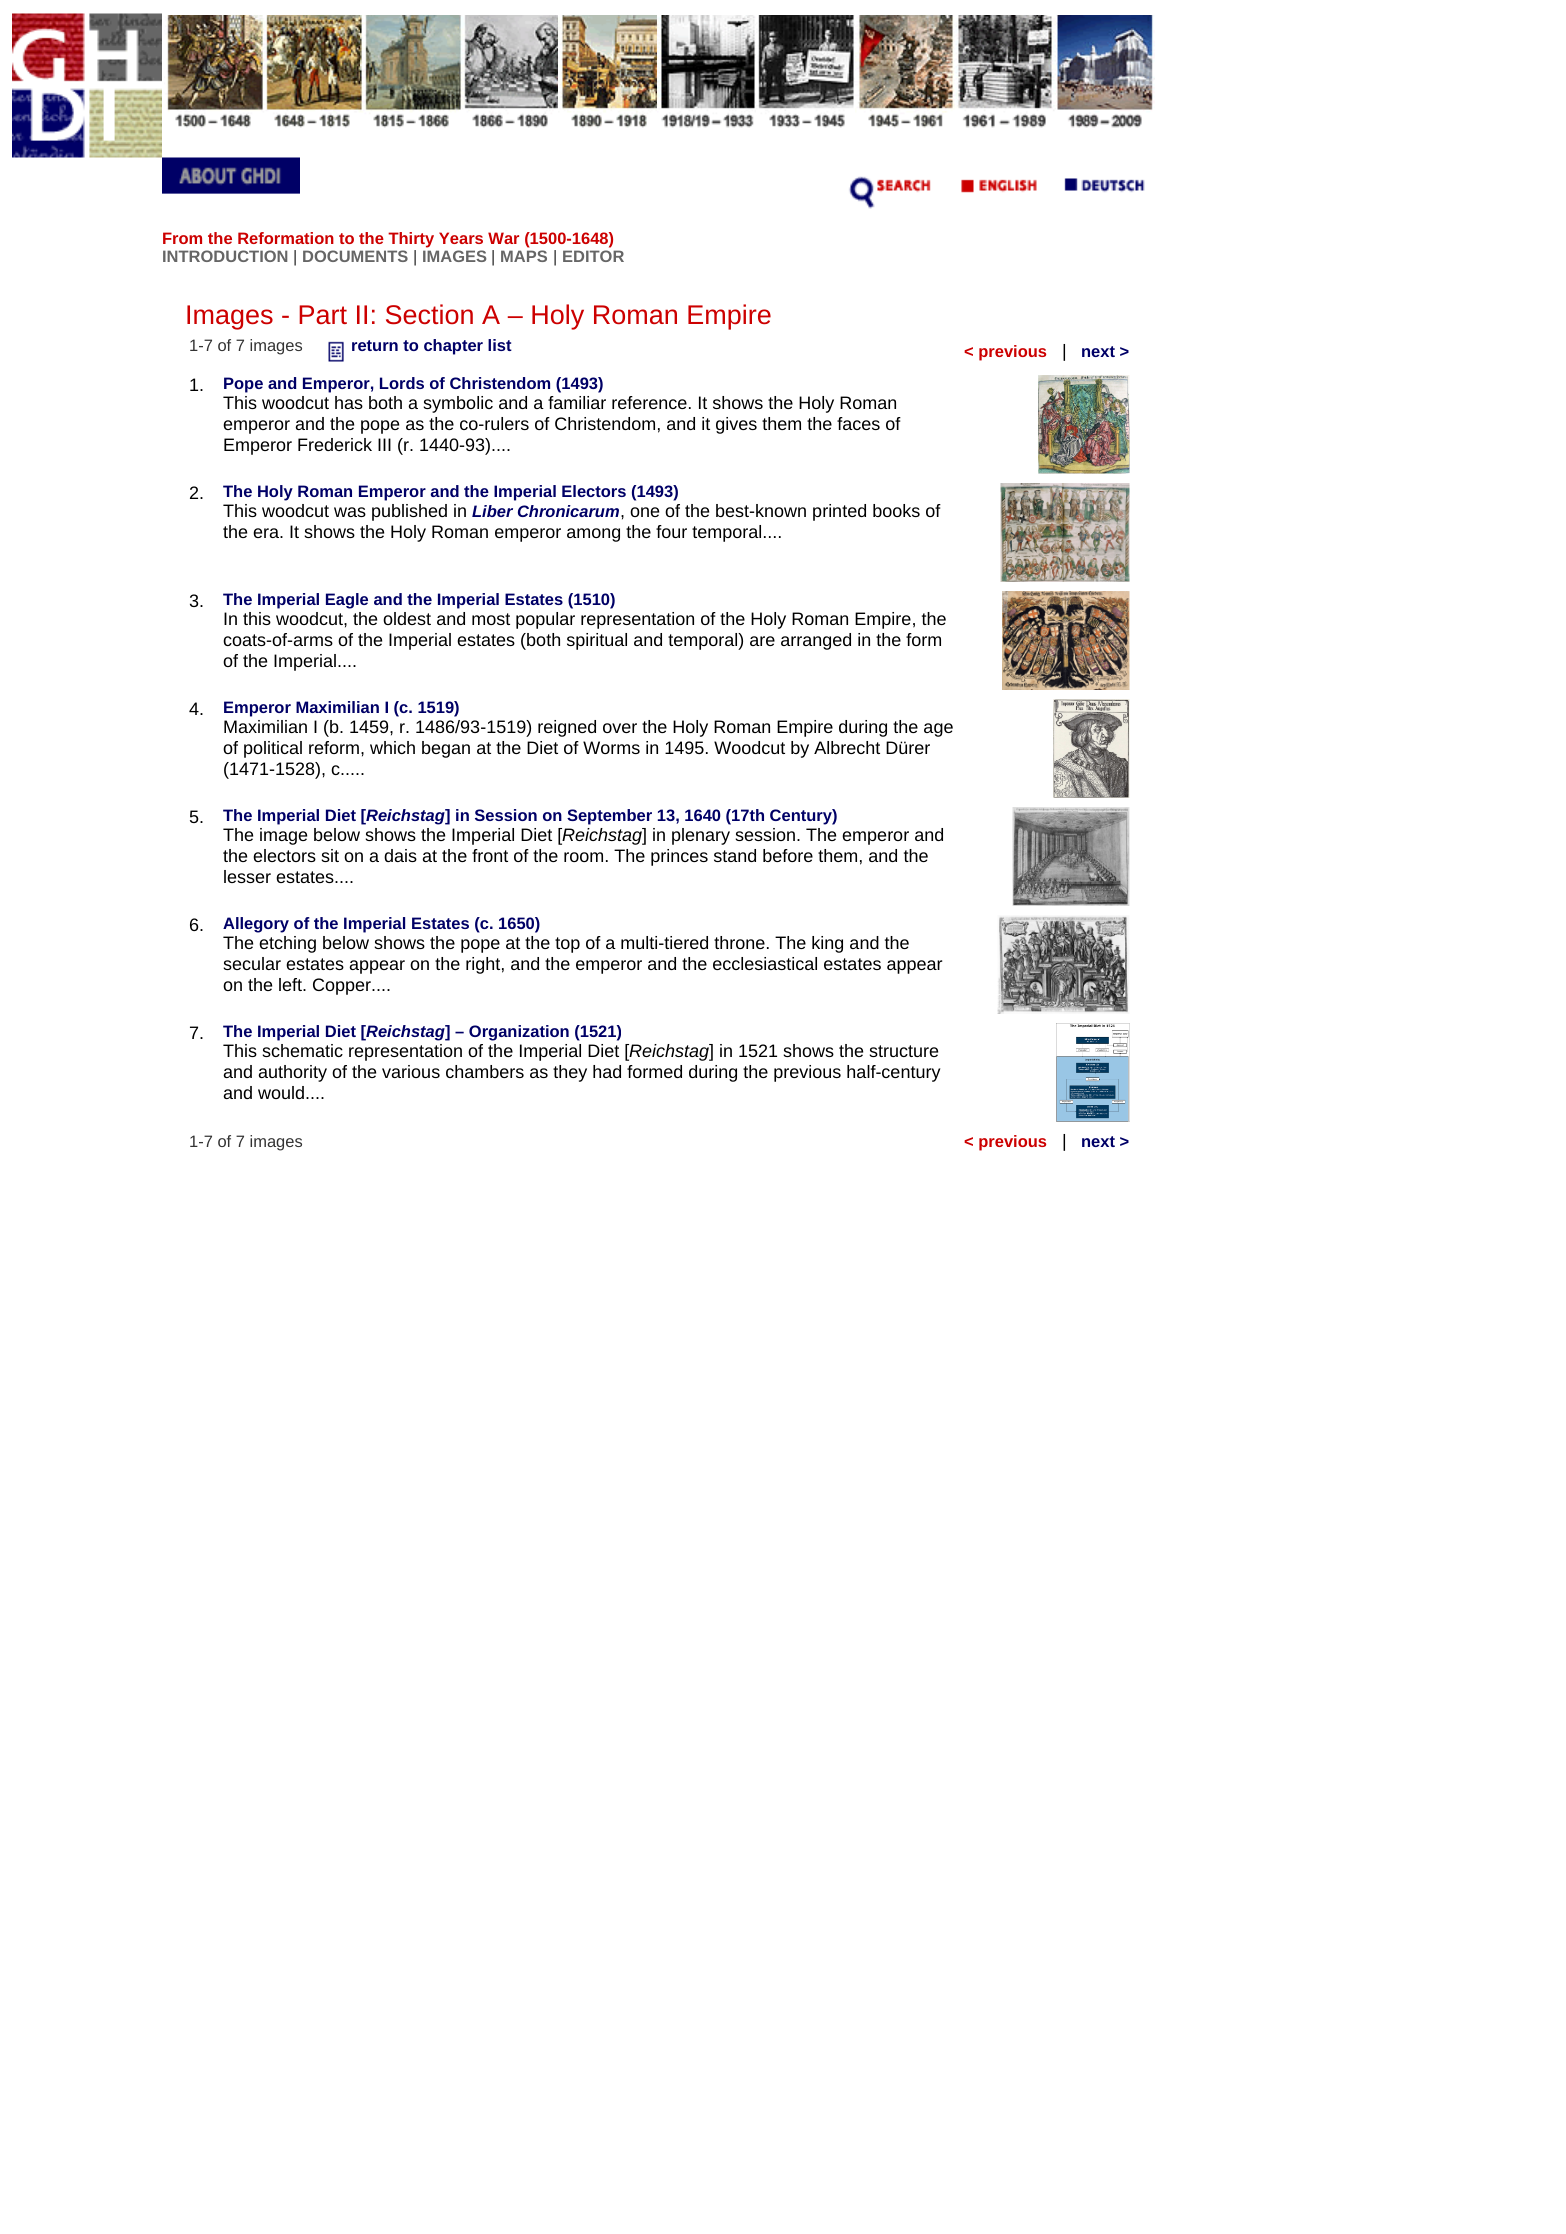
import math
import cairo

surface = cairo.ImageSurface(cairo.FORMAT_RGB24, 1566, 2234)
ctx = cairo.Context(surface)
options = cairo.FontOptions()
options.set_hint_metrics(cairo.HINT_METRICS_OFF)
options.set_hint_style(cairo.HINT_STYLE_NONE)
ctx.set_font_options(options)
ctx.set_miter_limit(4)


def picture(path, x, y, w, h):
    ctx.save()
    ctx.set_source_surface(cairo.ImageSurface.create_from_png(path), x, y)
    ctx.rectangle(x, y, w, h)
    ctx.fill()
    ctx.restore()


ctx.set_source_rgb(1, 1, 1)
ctx.paint()
picture("img1.png", 12, 13, 150, 145)
picture("img2.png", 164, 15, 97, 113)
picture("img3.png", 261, 15, 99, 113)
picture("img4.png", 360, 15, 99, 113)
picture("img5.png", 459, 15, 99, 113)
picture("img6.png", 558, 15, 99, 113)
picture("img7.png", 657, 15, 99, 113)
picture("img8.png", 756, 15, 99, 113)
picture("img9.png", 855, 15, 101, 113)
picture("img10.png", 955, 15, 101, 113)
picture("img11.png", 1056, 15, 99, 113)
picture("img12.png", 162, 157, 138, 37)
picture("img13.png", 848, 176, 83, 33)
picture("img14.png", 961, 179, 76, 14)
picture("img15.png", 1064, 178, 81, 15)
ctx.select_font_face("Liberation Sans", cairo.FONT_SLANT_NORMAL, cairo.FONT_WEIGHT_BOLD)
ctx.set_font_size(16.5)
ctx.set_source_rgb(0.8, 0, 0)
ctx.move_to(162, 244)
ctx.show_text("From the Reformation to the Thirty Years War (1500-1648)")
ctx.set_source_rgb(0.4, 0.4, 0.4)
ctx.move_to(162, 262)
ctx.show_text("INTRODUCTION")
ctx.select_font_face("Liberation Sans")
ctx.set_source_rgb(0.2, 0.2, 0.2)
ctx.move_to(293, 262)
ctx.show_text("|")
ctx.select_font_face("Liberation Sans", cairo.FONT_SLANT_NORMAL, cairo.FONT_WEIGHT_BOLD)
ctx.set_source_rgb(0.4, 0.4, 0.4)
ctx.move_to(302, 262)
ctx.show_text("DOCUMENTS")
ctx.select_font_face("Liberation Sans")
ctx.set_source_rgb(0.2, 0.2, 0.2)
ctx.move_to(413, 262)
ctx.show_text("|")
ctx.select_font_face("Liberation Sans", cairo.FONT_SLANT_NORMAL, cairo.FONT_WEIGHT_BOLD)
ctx.set_source_rgb(0.4, 0.4, 0.4)
ctx.move_to(422, 262)
ctx.show_text("IMAGES")
ctx.select_font_face("Liberation Sans")
ctx.set_source_rgb(0.2, 0.2, 0.2)
ctx.move_to(491, 262)
ctx.show_text("|")
ctx.select_font_face("Liberation Sans", cairo.FONT_SLANT_NORMAL, cairo.FONT_WEIGHT_BOLD)
ctx.set_source_rgb(0.4, 0.4, 0.4)
ctx.move_to(500, 262)
ctx.show_text("MAPS")
ctx.select_font_face("Liberation Sans")
ctx.set_source_rgb(0.2, 0.2, 0.2)
ctx.move_to(553, 262)
ctx.show_text("|")
ctx.select_font_face("Liberation Sans", cairo.FONT_SLANT_NORMAL, cairo.FONT_WEIGHT_BOLD)
ctx.set_source_rgb(0.4, 0.4, 0.4)
ctx.move_to(562, 262)
ctx.show_text("EDITOR")
ctx.select_font_face("Liberation Sans")
ctx.set_font_size(27)
ctx.set_source_rgb(0.8, 0, 0)
ctx.move_to(185, 324)
ctx.show_text("Images - Part II: Section A – Holy Roman Empire")
ctx.set_font_size(16.5)
ctx.set_source_rgb(0.2, 0.2, 0.2)
ctx.move_to(189, 351)
ctx.show_text("1-7 of 7 images")
picture("img16.png", 328, 341, 16, 21)
ctx.select_font_face("Liberation Sans", cairo.FONT_SLANT_NORMAL, cairo.FONT_WEIGHT_BOLD)
ctx.set_source_rgb(0, 0, 0.4)
ctx.move_to(351, 351)
ctx.show_text("return to chapter list")
ctx.set_source_rgb(0.8, 0, 0)
ctx.move_to(964, 357)
ctx.show_text("< previous")
ctx.select_font_face("Liberation Sans")
ctx.set_font_size(18)
ctx.set_source_rgb(0, 0, 0)
ctx.move_to(1062, 357)
ctx.show_text("|")
ctx.select_font_face("Liberation Sans", cairo.FONT_SLANT_NORMAL, cairo.FONT_WEIGHT_BOLD)
ctx.set_font_size(16.5)
ctx.set_source_rgb(0, 0, 0.4)
ctx.move_to(1081, 357)
ctx.show_text("next >")
ctx.select_font_face("Liberation Sans")
ctx.set_font_size(18)
ctx.set_source_rgb(0, 0, 0)
ctx.move_to(189, 391)
ctx.show_text("1.")
ctx.select_font_face("Liberation Sans", cairo.FONT_SLANT_NORMAL, cairo.FONT_WEIGHT_BOLD)
ctx.set_font_size(16.5)
ctx.set_source_rgb(0, 0, 0.4)
ctx.move_to(223, 389)
ctx.show_text("Pope and Emperor, Lords of Christendom (1493)")
ctx.select_font_face("Liberation Sans")
ctx.set_font_size(18)
ctx.set_source_rgb(0, 0, 0)
ctx.move_to(223, 409)
ctx.show_text("This woodcut has both a symbolic and a familiar reference. It shows the Holy Roman")
ctx.move_to(223, 430)
ctx.show_text("emperor and the pope as the co-rulers of Christendom, and it gives them the faces of")
ctx.move_to(223, 451)
ctx.show_text("Emperor Frederick III (r. 1440-93)....")
picture("img17.png", 1038, 375, 92, 99)
ctx.move_to(189, 499)
ctx.show_text("2.")
ctx.select_font_face("Liberation Sans", cairo.FONT_SLANT_NORMAL, cairo.FONT_WEIGHT_BOLD)
ctx.set_font_size(16.5)
ctx.set_source_rgb(0, 0, 0.4)
ctx.move_to(223, 497)
ctx.show_text("The Holy Roman Emperor and the Imperial Electors (1493)")
ctx.select_font_face("Liberation Sans")
ctx.set_font_size(18)
ctx.set_source_rgb(0, 0, 0)
ctx.move_to(223, 517)
ctx.show_text("This woodcut was published in")
ctx.select_font_face("Liberation Sans", cairo.FONT_SLANT_ITALIC, cairo.FONT_WEIGHT_BOLD)
ctx.set_font_size(16.5)
ctx.set_source_rgb(0, 0, 0.4)
ctx.move_to(472, 517)
ctx.show_text("Liber Chronicarum")
ctx.select_font_face("Liberation Sans")
ctx.set_font_size(18)
ctx.set_source_rgb(0, 0, 0)
ctx.move_to(620, 517)
ctx.show_text(", one of the best-known printed books of")
ctx.move_to(223, 538)
ctx.show_text("the era. It shows the Holy Roman emperor among the four temporal....")
picture("img18.png", 1000, 483, 130, 99)
ctx.move_to(189, 607)
ctx.show_text("3.")
ctx.select_font_face("Liberation Sans", cairo.FONT_SLANT_NORMAL, cairo.FONT_WEIGHT_BOLD)
ctx.set_font_size(16.5)
ctx.set_source_rgb(0, 0, 0.4)
ctx.move_to(223, 605)
ctx.show_text("The Imperial Eagle and the Imperial Estates (1510)")
ctx.select_font_face("Liberation Sans")
ctx.set_font_size(18)
ctx.set_source_rgb(0, 0, 0)
ctx.move_to(223, 625)
ctx.show_text("In this woodcut, the oldest and most popular representation of the Holy Roman Empire, the")
ctx.move_to(223, 646)
ctx.show_text("coats-of-arms of the Imperial estates (both spiritual and temporal) are arranged in the form")
ctx.move_to(223, 667)
ctx.show_text("of the Imperial....")
picture("img19.png", 1002, 591, 128, 99)
ctx.move_to(189, 715)
ctx.show_text("4.")
ctx.select_font_face("Liberation Sans", cairo.FONT_SLANT_NORMAL, cairo.FONT_WEIGHT_BOLD)
ctx.set_font_size(16.5)
ctx.set_source_rgb(0, 0, 0.4)
ctx.move_to(223, 713)
ctx.show_text("Emperor Maximilian I (c. 1519)")
ctx.select_font_face("Liberation Sans")
ctx.set_font_size(18)
ctx.set_source_rgb(0, 0, 0)
ctx.move_to(223, 733)
ctx.show_text("Maximilian I (b. 1459, r. 1486/93-1519) reigned over the Holy Roman Empire during the age")
ctx.move_to(223, 754)
ctx.show_text("of political reform, which began at the Diet of Worms in 1495. Woodcut by Albrecht Dürer")
ctx.move_to(223, 775)
ctx.show_text("(1471-1528), c.....")
picture("img20.png", 1053, 699, 77, 99)
ctx.move_to(189, 823)
ctx.show_text("5.")
ctx.select_font_face("Liberation Sans", cairo.FONT_SLANT_NORMAL, cairo.FONT_WEIGHT_BOLD)
ctx.set_font_size(16.5)
ctx.set_source_rgb(0, 0, 0.4)
ctx.move_to(223, 821)
ctx.show_text("The Imperial Diet [")
ctx.select_font_face("Liberation Sans", cairo.FONT_SLANT_ITALIC, cairo.FONT_WEIGHT_BOLD)
ctx.move_to(366, 821)
ctx.show_text("Reichstag")
ctx.select_font_face("Liberation Sans", cairo.FONT_SLANT_NORMAL, cairo.FONT_WEIGHT_BOLD)
ctx.move_to(445, 821)
ctx.show_text("] in Session on September 13, 1640 (17th Century)")
ctx.select_font_face("Liberation Sans")
ctx.set_font_size(18)
ctx.set_source_rgb(0, 0, 0)
ctx.move_to(223, 841)
ctx.show_text("The image below shows the Imperial Diet [")
ctx.select_font_face("Liberation Sans", cairo.FONT_SLANT_ITALIC)
ctx.move_to(562, 841)
ctx.show_text("Reichstag")
ctx.select_font_face("Liberation Sans")
ctx.move_to(642, 841)
ctx.show_text("] in plenary session. The emperor and")
ctx.move_to(223, 862)
ctx.show_text("the electors sit on a dais at the front of the room. The princes stand before them, and the")
ctx.move_to(223, 883)
ctx.show_text("lesser estates....")
picture("img21.png", 1012, 807, 118, 99)
ctx.move_to(189, 931)
ctx.show_text("6.")
ctx.select_font_face("Liberation Sans", cairo.FONT_SLANT_NORMAL, cairo.FONT_WEIGHT_BOLD)
ctx.set_font_size(16.5)
ctx.set_source_rgb(0, 0, 0.4)
ctx.move_to(223, 929)
ctx.show_text("Allegory of the Imperial Estates (c. 1650)")
ctx.select_font_face("Liberation Sans")
ctx.set_font_size(18)
ctx.set_source_rgb(0, 0, 0)
ctx.move_to(223, 949)
ctx.show_text("The etching below shows the pope at the top of a multi-tiered throne. The king and the")
ctx.move_to(223, 970)
ctx.show_text("secular estates appear on the right, and the emperor and the ecclesiastical estates appear")
ctx.move_to(223, 991)
ctx.show_text("on the left. Copper....")
picture("img22.png", 997, 915, 133, 99)
ctx.move_to(189, 1039)
ctx.show_text("7.")
ctx.select_font_face("Liberation Sans", cairo.FONT_SLANT_NORMAL, cairo.FONT_WEIGHT_BOLD)
ctx.set_font_size(16.5)
ctx.set_source_rgb(0, 0, 0.4)
ctx.move_to(223, 1037)
ctx.show_text("The Imperial Diet [")
ctx.select_font_face("Liberation Sans", cairo.FONT_SLANT_ITALIC, cairo.FONT_WEIGHT_BOLD)
ctx.move_to(366, 1037)
ctx.show_text("Reichstag")
ctx.select_font_face("Liberation Sans", cairo.FONT_SLANT_NORMAL, cairo.FONT_WEIGHT_BOLD)
ctx.move_to(445, 1037)
ctx.show_text("] – Organization (1521)")
ctx.select_font_face("Liberation Sans")
ctx.set_font_size(18)
ctx.set_source_rgb(0, 0, 0)
ctx.move_to(223, 1057)
ctx.show_text("This schematic representation of the Imperial Diet [")
ctx.select_font_face("Liberation Sans", cairo.FONT_SLANT_ITALIC)
ctx.move_to(629, 1057)
ctx.show_text("Reichstag")
ctx.select_font_face("Liberation Sans")
ctx.move_to(709, 1057)
ctx.show_text("] in 1521 shows the structure")
ctx.move_to(223, 1078)
ctx.show_text("and authority of the various chambers as they had formed during the previous half-century")
ctx.move_to(223, 1099)
ctx.show_text("and would....")
picture("img23.png", 1056, 1023, 74, 99)
ctx.set_font_size(16.5)
ctx.set_source_rgb(0.2, 0.2, 0.2)
ctx.move_to(189, 1147)
ctx.show_text("1-7 of 7 images")
ctx.select_font_face("Liberation Sans", cairo.FONT_SLANT_NORMAL, cairo.FONT_WEIGHT_BOLD)
ctx.set_source_rgb(0.8, 0, 0)
ctx.move_to(964, 1147)
ctx.show_text("< previous")
ctx.select_font_face("Liberation Sans")
ctx.set_font_size(18)
ctx.set_source_rgb(0, 0, 0)
ctx.move_to(1062, 1147)
ctx.show_text("|")
ctx.select_font_face("Liberation Sans", cairo.FONT_SLANT_NORMAL, cairo.FONT_WEIGHT_BOLD)
ctx.set_font_size(16.5)
ctx.set_source_rgb(0, 0, 0.4)
ctx.move_to(1081, 1147)
ctx.show_text("next >")
surface.write_to_png("page.png")
